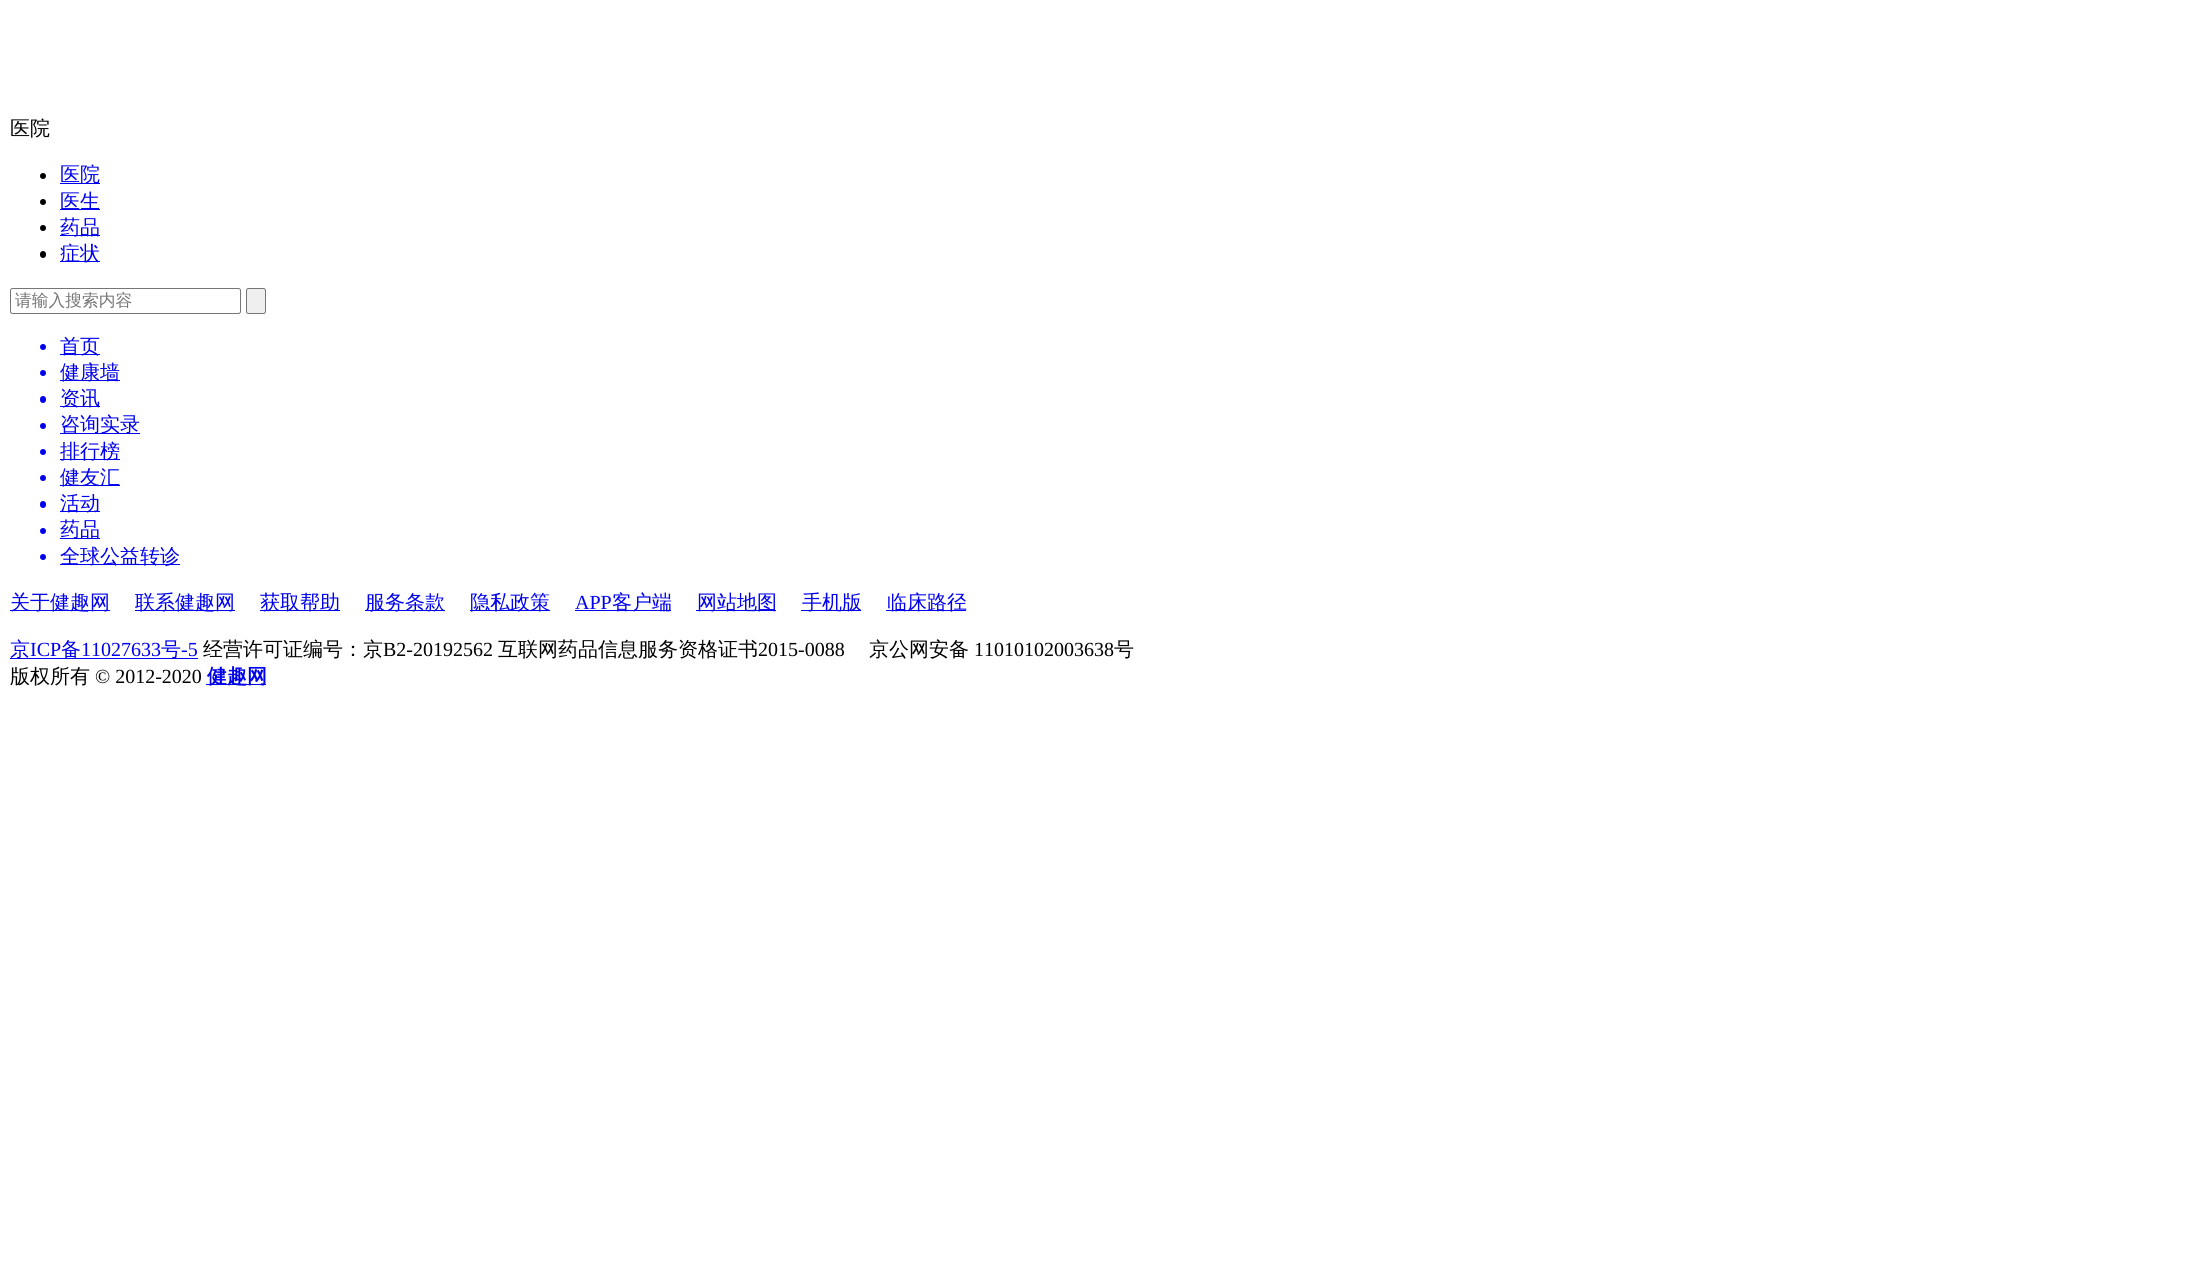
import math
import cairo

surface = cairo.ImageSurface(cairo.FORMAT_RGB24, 2193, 1274)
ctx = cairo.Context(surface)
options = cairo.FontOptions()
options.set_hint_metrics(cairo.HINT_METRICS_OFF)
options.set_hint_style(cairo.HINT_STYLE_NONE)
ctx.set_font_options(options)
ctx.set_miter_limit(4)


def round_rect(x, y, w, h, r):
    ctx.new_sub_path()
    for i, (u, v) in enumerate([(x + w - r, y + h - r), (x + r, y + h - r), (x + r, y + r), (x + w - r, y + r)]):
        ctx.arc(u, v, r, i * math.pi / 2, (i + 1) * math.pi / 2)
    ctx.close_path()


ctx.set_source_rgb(1, 1, 1)
ctx.paint()
ctx.select_font_face("WenQuanYi Zen Hei Medium")
ctx.set_font_size(20)
ctx.set_source_rgb(0, 0, 0)
ctx.move_to(10, 135)
ctx.show_text("医院")
ctx.new_path()
ctx.arc(43, 176, 3, 0, 2 * math.pi)
ctx.fill()
ctx.set_source_rgb(0, 0, 0.933)
ctx.rectangle(60, 183, 40, 1)
ctx.fill()
ctx.move_to(60, 181)
ctx.show_text("医院")
ctx.set_source_rgb(0, 0, 0)
ctx.new_path()
ctx.arc(43, 202, 3, 0, 2 * math.pi)
ctx.fill()
ctx.set_source_rgb(0, 0, 0.933)
ctx.rectangle(60, 209, 40, 1)
ctx.fill()
ctx.move_to(60, 208)
ctx.show_text("医生")
ctx.set_source_rgb(0, 0, 0)
ctx.new_path()
ctx.arc(43, 228, 3, 0, 2 * math.pi)
ctx.fill()
ctx.set_source_rgb(0, 0, 0.933)
ctx.rectangle(60, 235, 40, 1)
ctx.fill()
ctx.move_to(60, 234)
ctx.show_text("药品")
ctx.set_source_rgb(0, 0, 0)
round_rect(40, 251, 6, 7, 3)
ctx.fill()
ctx.set_source_rgb(0, 0, 0.933)
ctx.rectangle(60, 261, 40, 1)
ctx.fill()
ctx.move_to(60, 260)
ctx.show_text("症状")
round_rect(10.5, 288.5, 230, 25, 2)
ctx.set_source_rgb(0.463, 0.463, 0.463)
ctx.set_line_width(1)
ctx.stroke()
ctx.set_font_size(16.75)
ctx.set_source_rgb(0.459, 0.459, 0.459)
ctx.move_to(15, 306)
ctx.show_text("请输入搜索内容")
ctx.set_source_rgb(0.937, 0.937, 0.937)
round_rect(246.5, 288.5, 19, 25, 2)
ctx.fill_preserve()
ctx.set_source_rgb(0.463, 0.463, 0.463)
ctx.stroke()
ctx.set_source_rgb(0, 0, 0.933)
ctx.arc(43, 347, 3, 0, 2 * math.pi)
ctx.fill()
ctx.rectangle(60, 354, 40, 1)
ctx.fill()
ctx.set_font_size(20)
ctx.move_to(60, 353)
ctx.show_text("首页")
ctx.new_path()
ctx.arc(43, 373, 3, 0, 2 * math.pi)
ctx.fill()
ctx.rectangle(60, 380, 60, 1)
ctx.fill()
ctx.move_to(60, 379)
ctx.show_text("健康墙")
round_rect(40, 396, 6, 7, 3)
ctx.fill()
ctx.rectangle(60, 406, 40, 1)
ctx.fill()
ctx.move_to(60, 405)
ctx.show_text("资讯")
ctx.new_path()
ctx.arc(43, 426, 3, 0, 2 * math.pi)
ctx.fill()
ctx.rectangle(60, 433, 80, 1)
ctx.fill()
ctx.move_to(60, 431)
ctx.show_text("咨询实录")
ctx.new_path()
ctx.arc(43, 452, 3, 0, 2 * math.pi)
ctx.fill()
ctx.rectangle(60, 459, 60, 1)
ctx.fill()
ctx.move_to(60, 458)
ctx.show_text("排行榜")
ctx.new_path()
ctx.arc(43, 478, 3, 0, 2 * math.pi)
ctx.fill()
ctx.rectangle(60, 485, 60, 1)
ctx.fill()
ctx.move_to(60, 484)
ctx.show_text("健友汇")
round_rect(40, 501, 6, 7, 3)
ctx.fill()
ctx.rectangle(60, 511, 40, 1)
ctx.fill()
ctx.move_to(60, 510)
ctx.show_text("活动")
ctx.new_path()
ctx.arc(43, 531, 3, 0, 2 * math.pi)
ctx.fill()
ctx.rectangle(60, 538, 40, 1)
ctx.fill()
ctx.move_to(60, 536)
ctx.show_text("药品")
ctx.new_path()
ctx.arc(43, 557, 3, 0, 2 * math.pi)
ctx.fill()
ctx.rectangle(60, 564, 120, 1)
ctx.fill()
ctx.move_to(60, 563)
ctx.show_text("全球公益转诊")
ctx.rectangle(10, 610, 100, 1)
ctx.fill()
ctx.move_to(10, 609)
ctx.show_text("关于健趣网")
ctx.rectangle(135, 610, 100, 1)
ctx.fill()
ctx.move_to(135, 609)
ctx.show_text("联系健趣网")
ctx.rectangle(260, 610, 80, 1)
ctx.fill()
ctx.move_to(260, 609)
ctx.show_text("获取帮助")
ctx.rectangle(365, 610, 80, 1)
ctx.fill()
ctx.move_to(365, 609)
ctx.show_text("服务条款")
ctx.rectangle(470, 610, 80, 1)
ctx.fill()
ctx.move_to(470, 609)
ctx.show_text("隐私政策")
ctx.select_font_face("Liberation Serif")
ctx.move_to(575, 609)
ctx.show_text("APP")
ctx.rectangle(575, 610, 96, 1)
ctx.fill()
ctx.select_font_face("WenQuanYi Zen Hei Medium")
ctx.move_to(612, 609)
ctx.show_text("客户端")
ctx.rectangle(696, 610, 80, 1)
ctx.fill()
ctx.move_to(697, 609)
ctx.show_text("网站地图")
ctx.rectangle(801, 610, 60, 1)
ctx.fill()
ctx.move_to(802, 609)
ctx.show_text("手机版")
ctx.rectangle(886, 610, 80, 1)
ctx.fill()
ctx.move_to(887, 609)
ctx.show_text("临床路径")
ctx.rectangle(10, 658, 188, 1)
ctx.fill()
ctx.move_to(10, 656)
ctx.show_text("京")
ctx.select_font_face("Liberation Serif")
ctx.move_to(30, 656)
ctx.show_text("ICP")
ctx.select_font_face("WenQuanYi Zen Hei Medium")
ctx.move_to(61, 656)
ctx.show_text("备")
ctx.select_font_face("Liberation Serif")
ctx.move_to(81, 656)
ctx.show_text("11027633")
ctx.select_font_face("WenQuanYi Zen Hei Medium")
ctx.move_to(161, 656)
ctx.show_text("号")
ctx.select_font_face("Liberation Serif")
ctx.move_to(181, 656)
ctx.show_text("-5")
ctx.select_font_face("WenQuanYi Zen Hei Medium")
ctx.set_source_rgb(0, 0, 0)
ctx.move_to(203, 656)
ctx.show_text("经营许可证编号：京")
ctx.select_font_face("Liberation Serif")
ctx.move_to(383, 656)
ctx.show_text("B2-20192562")
ctx.select_font_face("WenQuanYi Zen Hei Medium")
ctx.move_to(498, 656)
ctx.show_text("互联网药品信息服务资格证书")
ctx.select_font_face("Liberation Serif")
ctx.move_to(758, 656)
ctx.show_text("2015-0088")
ctx.select_font_face("WenQuanYi Zen Hei Medium")
ctx.move_to(869, 656)
ctx.show_text("京公网安备")
ctx.select_font_face("Liberation Serif")
ctx.move_to(974, 656)
ctx.show_text("11010102003638")
ctx.select_font_face("WenQuanYi Zen Hei Medium")
ctx.move_to(1114, 656)
ctx.show_text("号")
ctx.move_to(10, 683)
ctx.show_text("版权所有")
ctx.select_font_face("Liberation Serif")
ctx.move_to(95, 683)
ctx.show_text("© 2012-2020")
ctx.set_source_rgb(0, 0, 0.933)
ctx.rectangle(206, 684, 60, 1)
ctx.fill()
ctx.select_font_face("WenQuanYi Zen Hei", cairo.FONT_SLANT_NORMAL, cairo.FONT_WEIGHT_BOLD)
ctx.move_to(207, 683)
ctx.show_text("健趣网")
surface.write_to_png("page.png")
